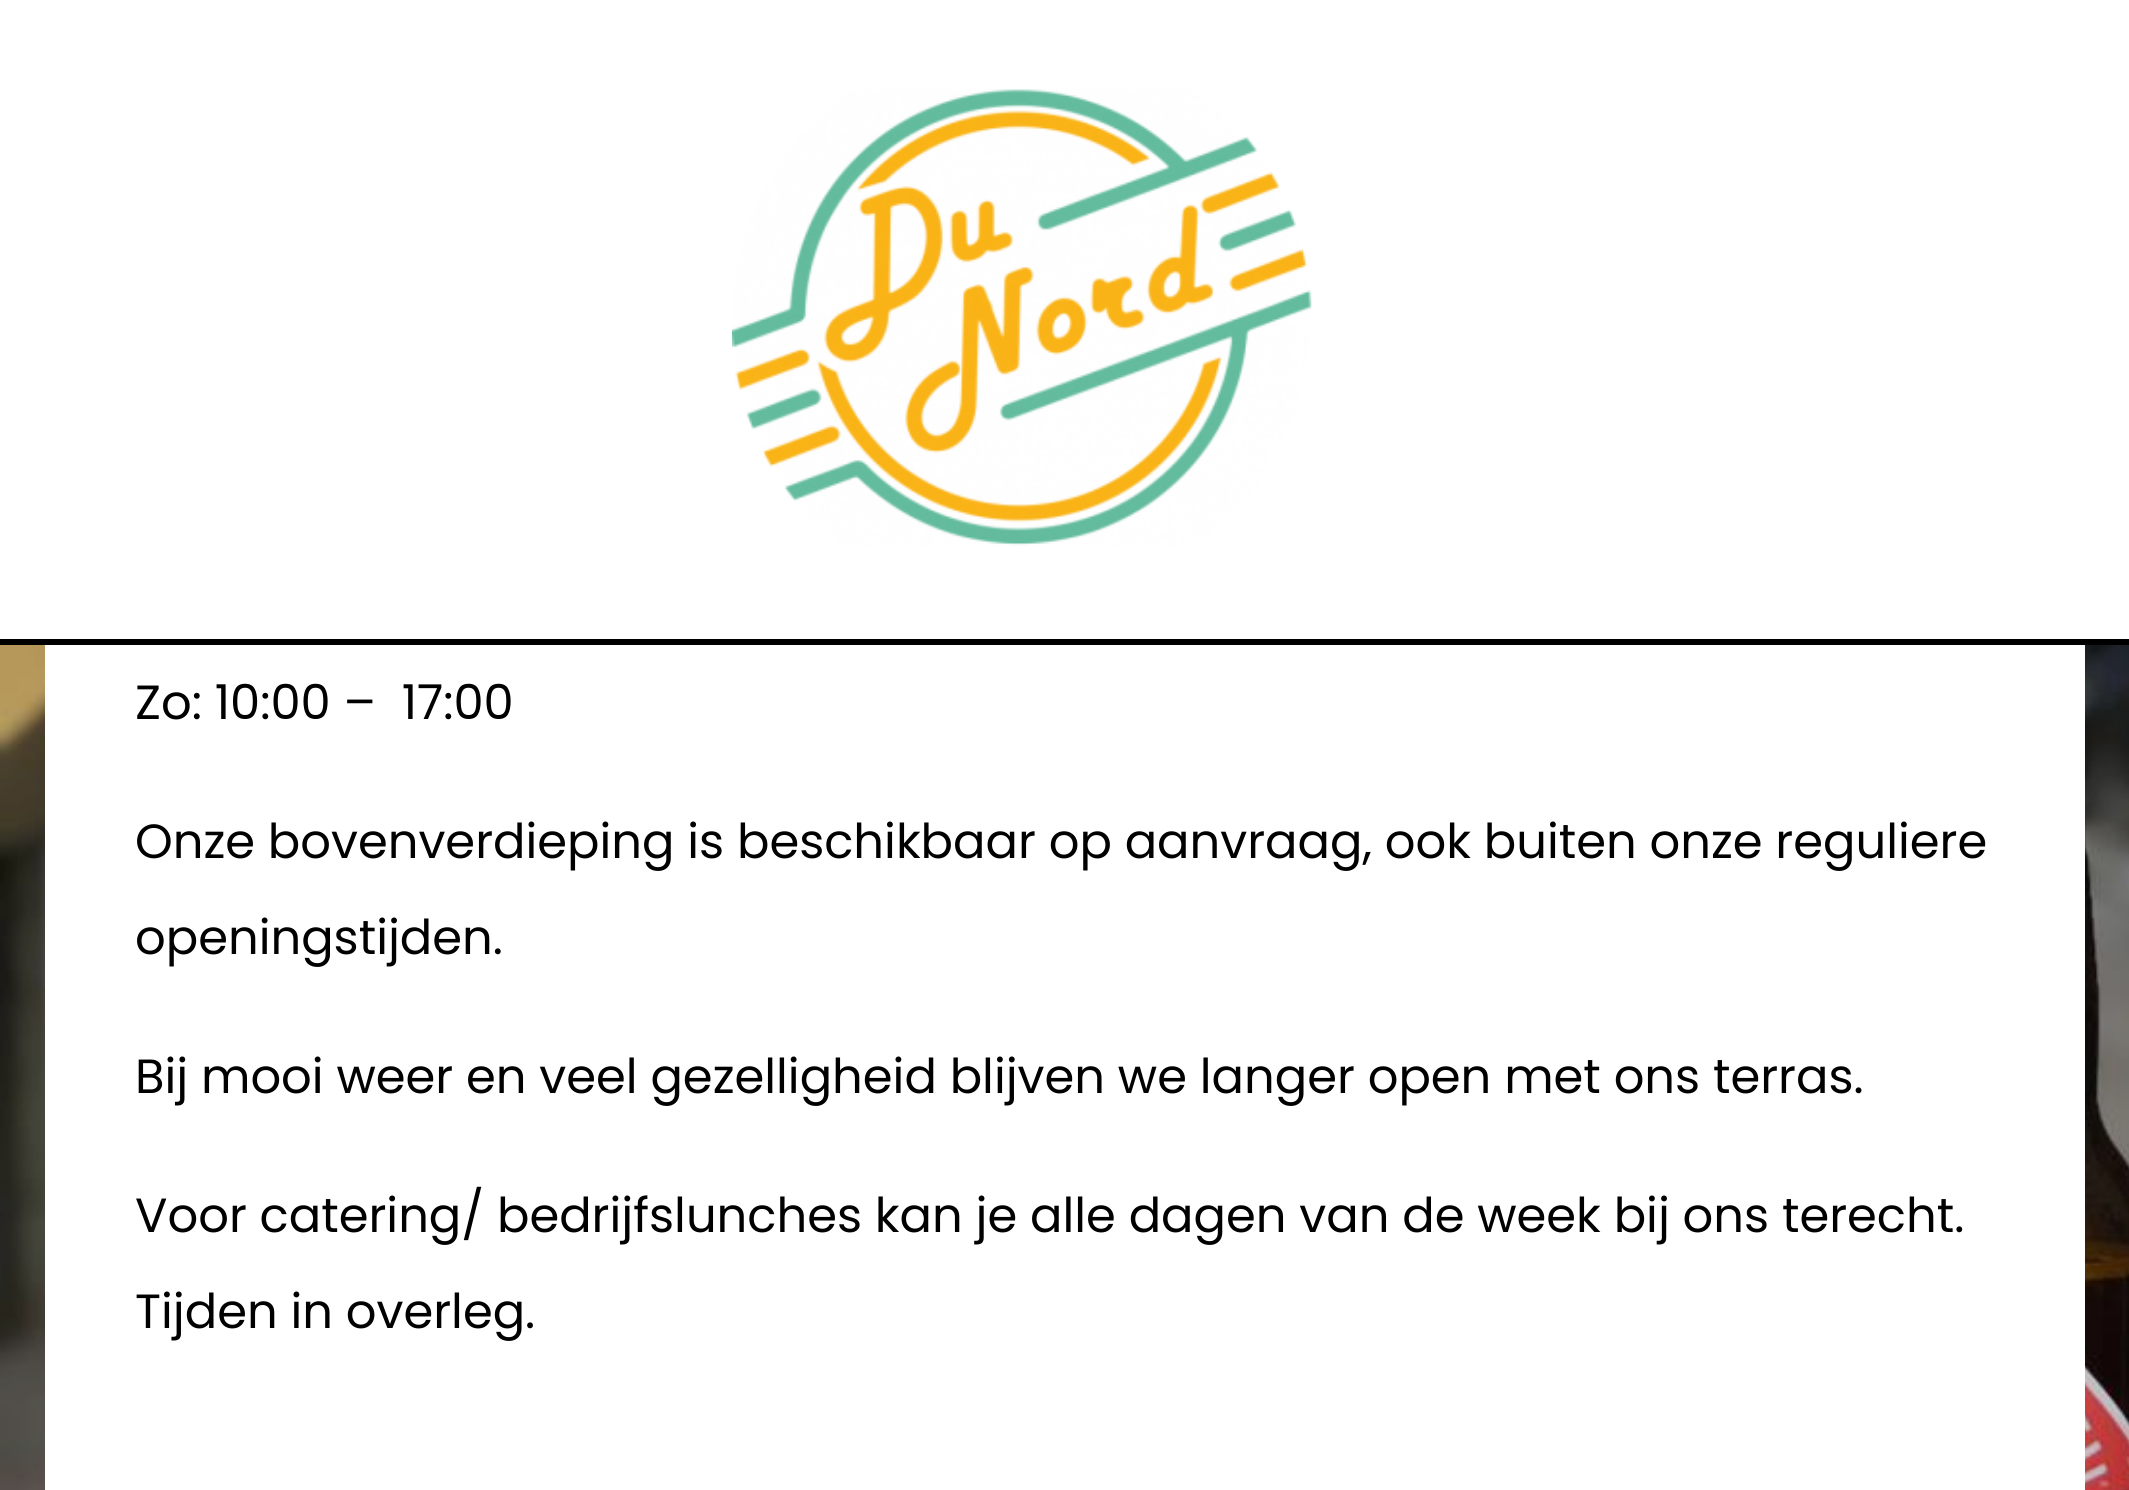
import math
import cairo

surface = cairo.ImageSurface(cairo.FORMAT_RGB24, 2129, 1490)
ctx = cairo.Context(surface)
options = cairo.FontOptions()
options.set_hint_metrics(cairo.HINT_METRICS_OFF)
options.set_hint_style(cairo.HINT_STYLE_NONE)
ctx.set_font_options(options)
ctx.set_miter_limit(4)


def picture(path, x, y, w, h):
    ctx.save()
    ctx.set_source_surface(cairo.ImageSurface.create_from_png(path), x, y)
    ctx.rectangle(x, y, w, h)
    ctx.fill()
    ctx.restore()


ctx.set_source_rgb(1, 1, 1)
ctx.paint()
ctx.set_source_rgb(0, 0, 0)
ctx.rectangle(0, 639, 2129, 6)
ctx.fill()
picture("img1.png", 732, 89, 580, 457)
picture("img2.png", 0, 645, 2129, 845)
ctx.set_source_rgb(1, 1, 1)
ctx.rectangle(45, 645, 2040, 845)
ctx.fill()
ctx.select_font_face("Poppins")
ctx.set_font_size(48)
ctx.set_source_rgb(0, 0, 0)
ctx.move_to(135, 719)
ctx.show_text("Zo: 10:00 –  17:00")
ctx.move_to(135, 858)
ctx.show_text("Onze bovenverdieping is beschikbaar op aanvraag, ook buiten onze reguliere")
ctx.move_to(135, 954)
ctx.show_text("openingstijden.")
ctx.move_to(135, 1093)
ctx.show_text("Bij mooi weer en veel gezelligheid blijven we langer open met ons terras.")
ctx.move_to(135, 1232)
ctx.show_text("Voor catering/ bedrijfslunches kan je alle dagen van de week bij ons terecht.")
ctx.move_to(135, 1328)
ctx.show_text("Tijden in overleg.")
surface.write_to_png("page.png")
